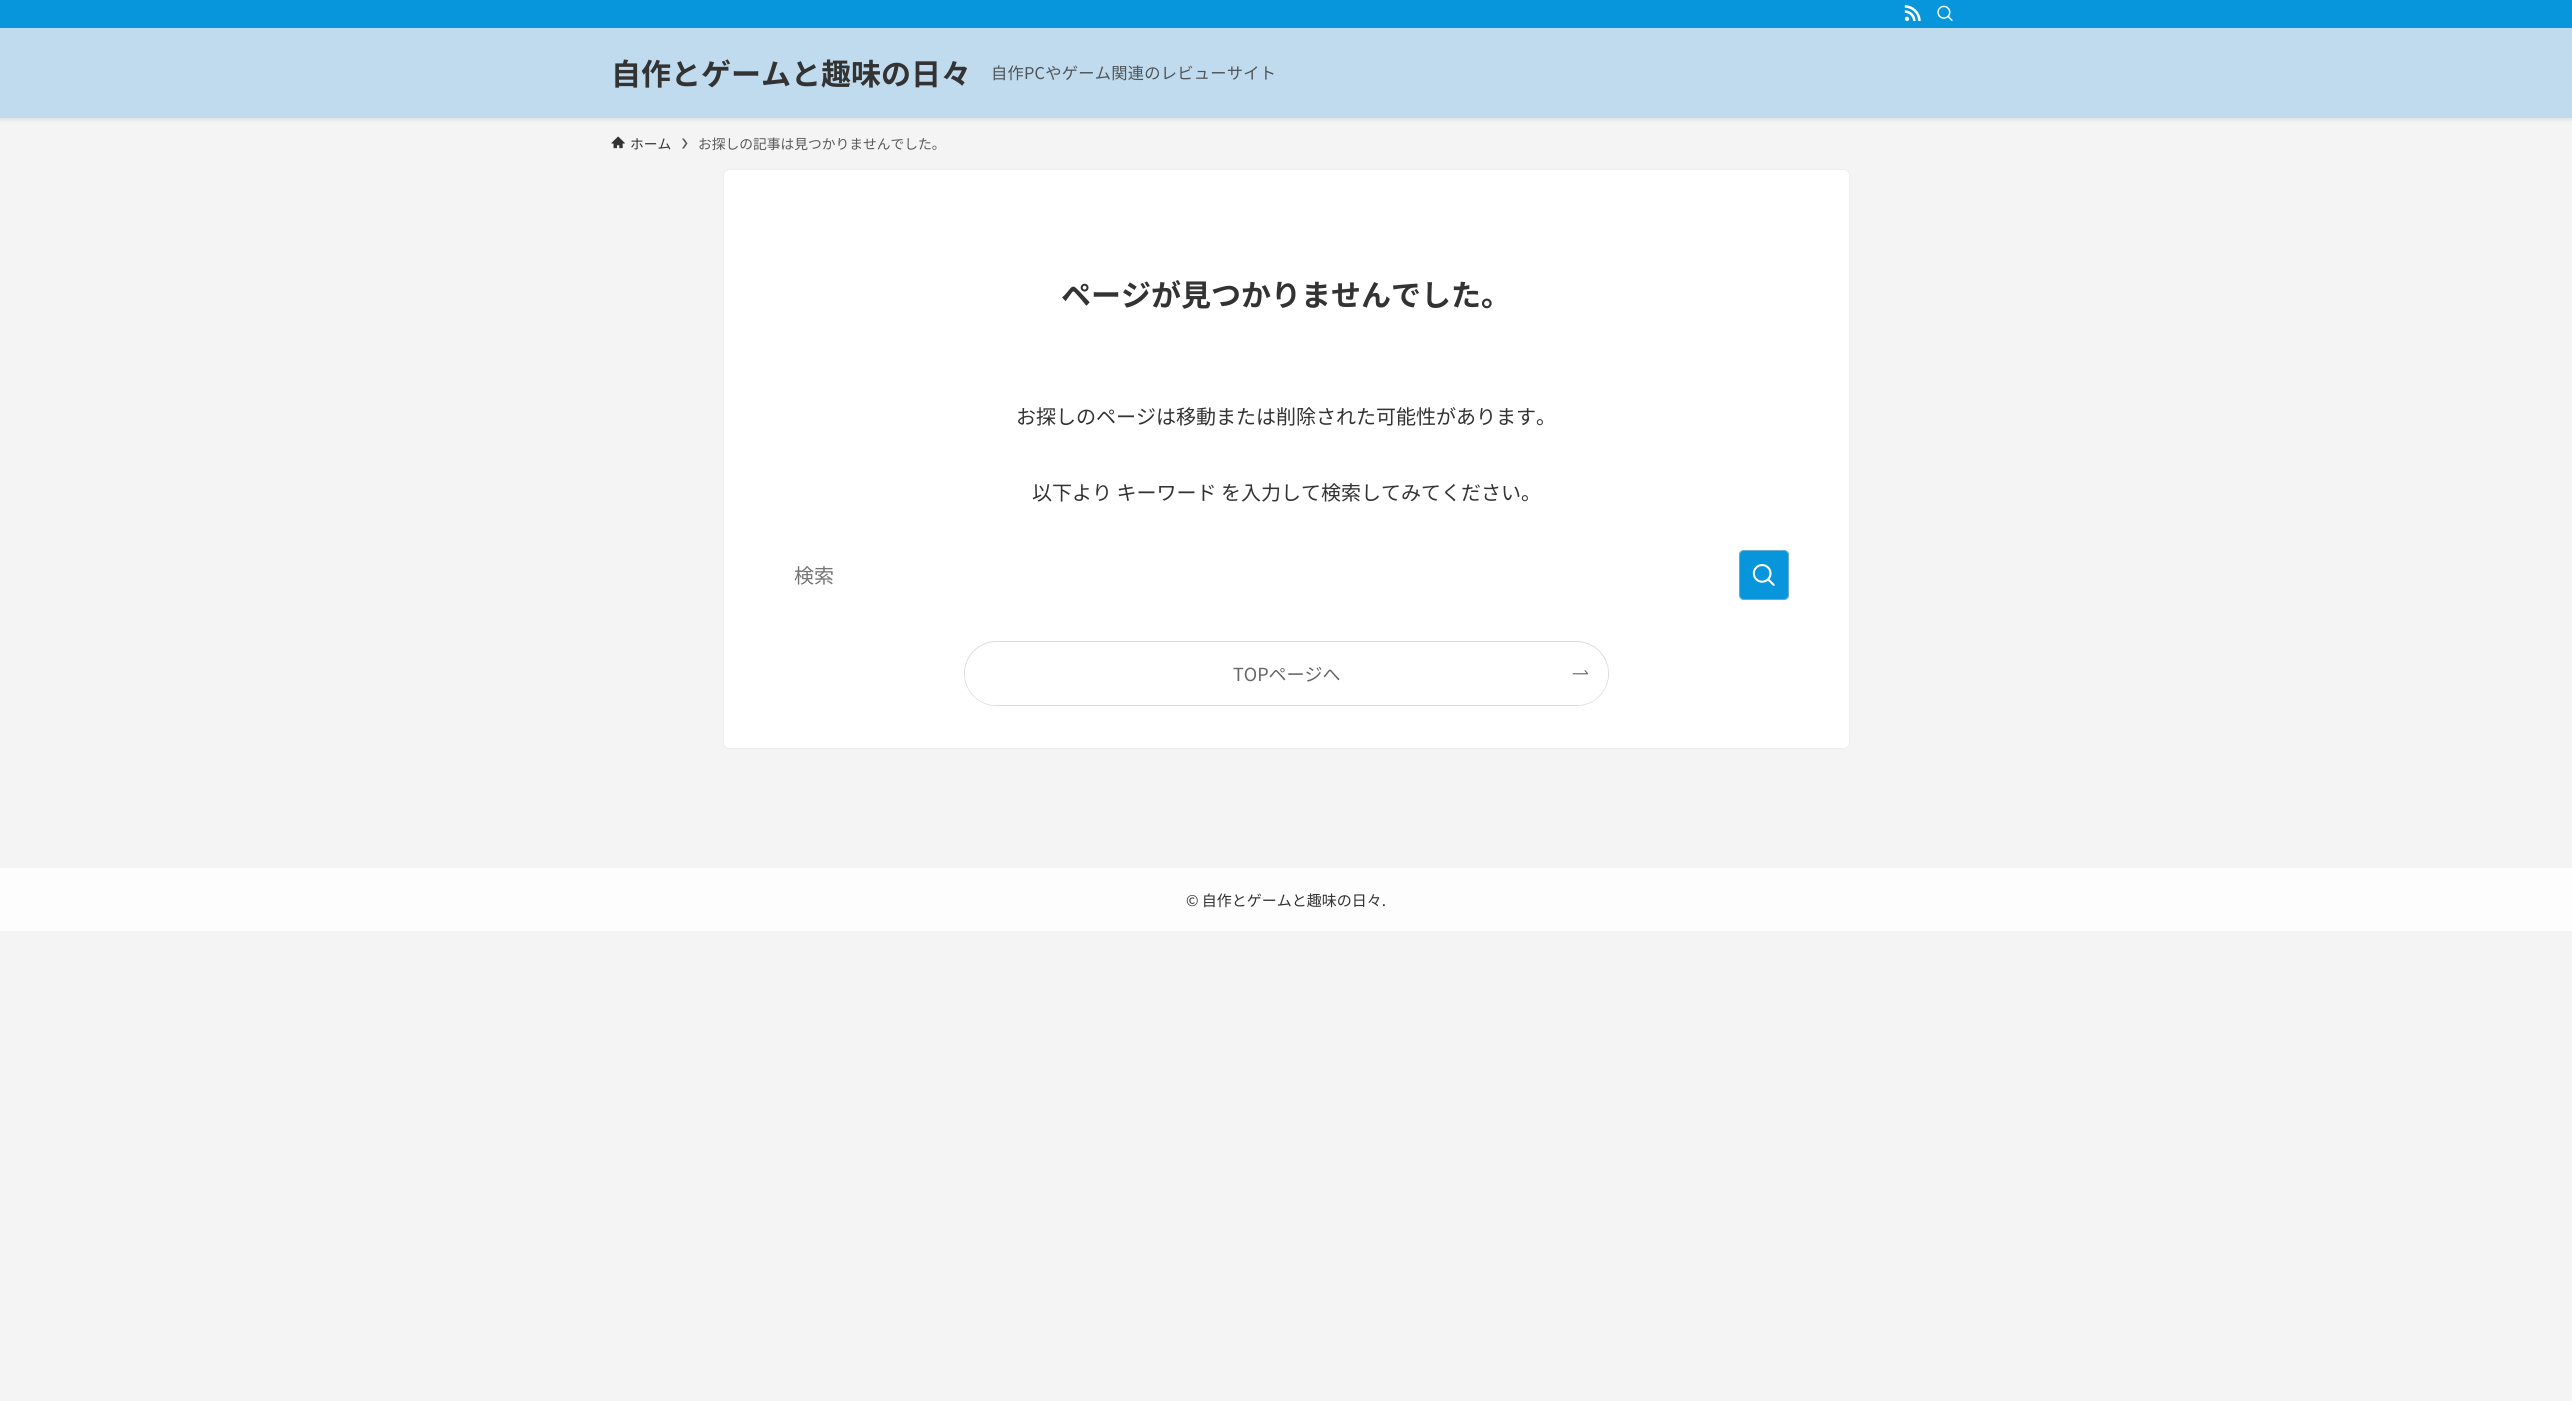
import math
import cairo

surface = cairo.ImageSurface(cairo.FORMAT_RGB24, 2572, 1401)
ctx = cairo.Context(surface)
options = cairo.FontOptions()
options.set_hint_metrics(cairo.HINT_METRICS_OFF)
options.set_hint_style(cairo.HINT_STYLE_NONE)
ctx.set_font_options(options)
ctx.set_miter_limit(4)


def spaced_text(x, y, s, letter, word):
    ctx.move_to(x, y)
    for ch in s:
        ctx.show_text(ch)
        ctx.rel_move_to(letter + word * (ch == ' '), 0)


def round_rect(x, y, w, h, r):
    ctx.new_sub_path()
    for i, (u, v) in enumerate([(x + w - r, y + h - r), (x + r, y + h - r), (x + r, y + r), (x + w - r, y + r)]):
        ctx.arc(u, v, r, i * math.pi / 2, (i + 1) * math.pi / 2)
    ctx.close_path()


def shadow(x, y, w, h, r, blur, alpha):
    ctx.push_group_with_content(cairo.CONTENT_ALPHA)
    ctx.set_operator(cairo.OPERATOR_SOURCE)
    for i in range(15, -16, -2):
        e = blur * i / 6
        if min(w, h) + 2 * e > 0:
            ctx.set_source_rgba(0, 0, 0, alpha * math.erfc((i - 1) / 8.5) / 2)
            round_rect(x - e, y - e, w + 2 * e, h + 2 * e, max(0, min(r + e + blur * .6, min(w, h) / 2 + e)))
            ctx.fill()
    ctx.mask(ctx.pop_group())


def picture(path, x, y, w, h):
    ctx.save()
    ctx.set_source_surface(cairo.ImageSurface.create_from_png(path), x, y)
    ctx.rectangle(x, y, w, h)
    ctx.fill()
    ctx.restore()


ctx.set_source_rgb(0.957, 0.957, 0.957)
ctx.paint()
ctx.set_source_rgb(0, 0, 0)
shadow(0, 1, 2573, 118, 0, 2.5, 0.12)
ctx.set_source_rgb(0.753, 0.859, 0.929)
ctx.rectangle(0, 28, 2572, 90)
ctx.fill()
ctx.set_source_rgb(0.031, 0.584, 0.859)
ctx.rectangle(0, 0, 2572, 28)
ctx.fill()
picture("img1.png", 1904, 5, 17, 16)
picture("img2.png", 1937, 5, 16, 16)
ctx.select_font_face("Noto Sans JP", cairo.FONT_SLANT_NORMAL, cairo.FONT_WEIGHT_BOLD)
ctx.set_font_size(30)
ctx.set_source_rgb(0.2, 0.2, 0.2)
ctx.move_to(611, 85)
ctx.show_text("自作とゲームと趣味の日々")
ctx.select_font_face("Noto Sans JP")
ctx.set_font_size(16.25)
ctx.set_source_rgb(0.31, 0.333, 0.345)
spaced_text(991, 79, "自作PCやゲーム関連のレビューサイト", 0.25, 0)
picture("img3.png", 611, 136, 14, 13)
ctx.set_font_size(13.75)
ctx.set_source_rgb(0.2, 0.2, 0.2)
ctx.move_to(630, 149)
ctx.show_text("ホーム")
ctx.set_source_rgb(0.353, 0.353, 0.353)
ctx.new_path()
ctx.move_to(684, 138.5)
ctx.line_to(682, 138.5)
ctx.line_to(685.5, 143.5)
ctx.line_to(682, 148.5)
ctx.line_to(684, 148.5)
ctx.line_to(687.5, 143.5)
ctx.close_path()
ctx.fill()
ctx.move_to(698, 149)
ctx.show_text("お探しの記事は見つかりませんでした。")
ctx.set_source_rgb(0, 0, 0)
shadow(724, 170, 1125, 578, 5, 0.5, 0.12)
ctx.set_source_rgb(1, 1, 1)
round_rect(724, 170, 1125, 578, 5)
ctx.fill()
ctx.select_font_face("Noto Sans JP", cairo.FONT_SLANT_NORMAL, cairo.FONT_WEIGHT_BOLD)
ctx.set_font_size(30)
ctx.set_source_rgb(0.2, 0.2, 0.2)
ctx.move_to(1061, 306)
ctx.show_text("ページが見つかりませんでした。")
ctx.select_font_face("Noto Sans JP")
ctx.set_font_size(20)
ctx.move_to(1016, 424)
ctx.show_text("お探しのページは移動または削除された可能性があります。")
ctx.move_to(1032, 500)
ctx.show_text("以下より キーワード を入力して検索してみてください。")
ctx.set_source_rgb(0.459, 0.459, 0.459)
ctx.move_to(794, 583)
ctx.show_text("検索")
ctx.set_source_rgb(0.031, 0.584, 0.859)
round_rect(1739, 550, 50, 50, 5)
ctx.fill()
round_rect(1739.5, 550.5, 49, 49, 4.5)
ctx.set_source_rgba(0.78, 0.78, 0.78, 0.5)
ctx.set_line_width(1)
ctx.stroke()
picture("img4.png", 1752, 564, 23, 22)
round_rect(964.5, 641.5, 644, 64, 32)
ctx.set_source_rgb(0.863, 0.863, 0.863)
ctx.stroke()
ctx.set_source_rgb(1, 1, 1)
round_rect(965, 643, 643, 62, 31)
ctx.fill()
ctx.set_font_size(18)
ctx.set_source_rgb(0.4, 0.4, 0.4)
ctx.move_to(1233, 681)
ctx.show_text("TOPページへ")
picture("img5.png", 1572, 670, 17, 5)
ctx.set_source_rgb(0.992, 0.992, 0.992)
ctx.rectangle(0, 868, 2572, 63)
ctx.fill()
ctx.set_font_size(15)
ctx.set_source_rgb(0.2, 0.2, 0.2)
ctx.move_to(1186, 906)
ctx.show_text("© 自作とゲームと趣味の日々.")
surface.write_to_png("page.png")
